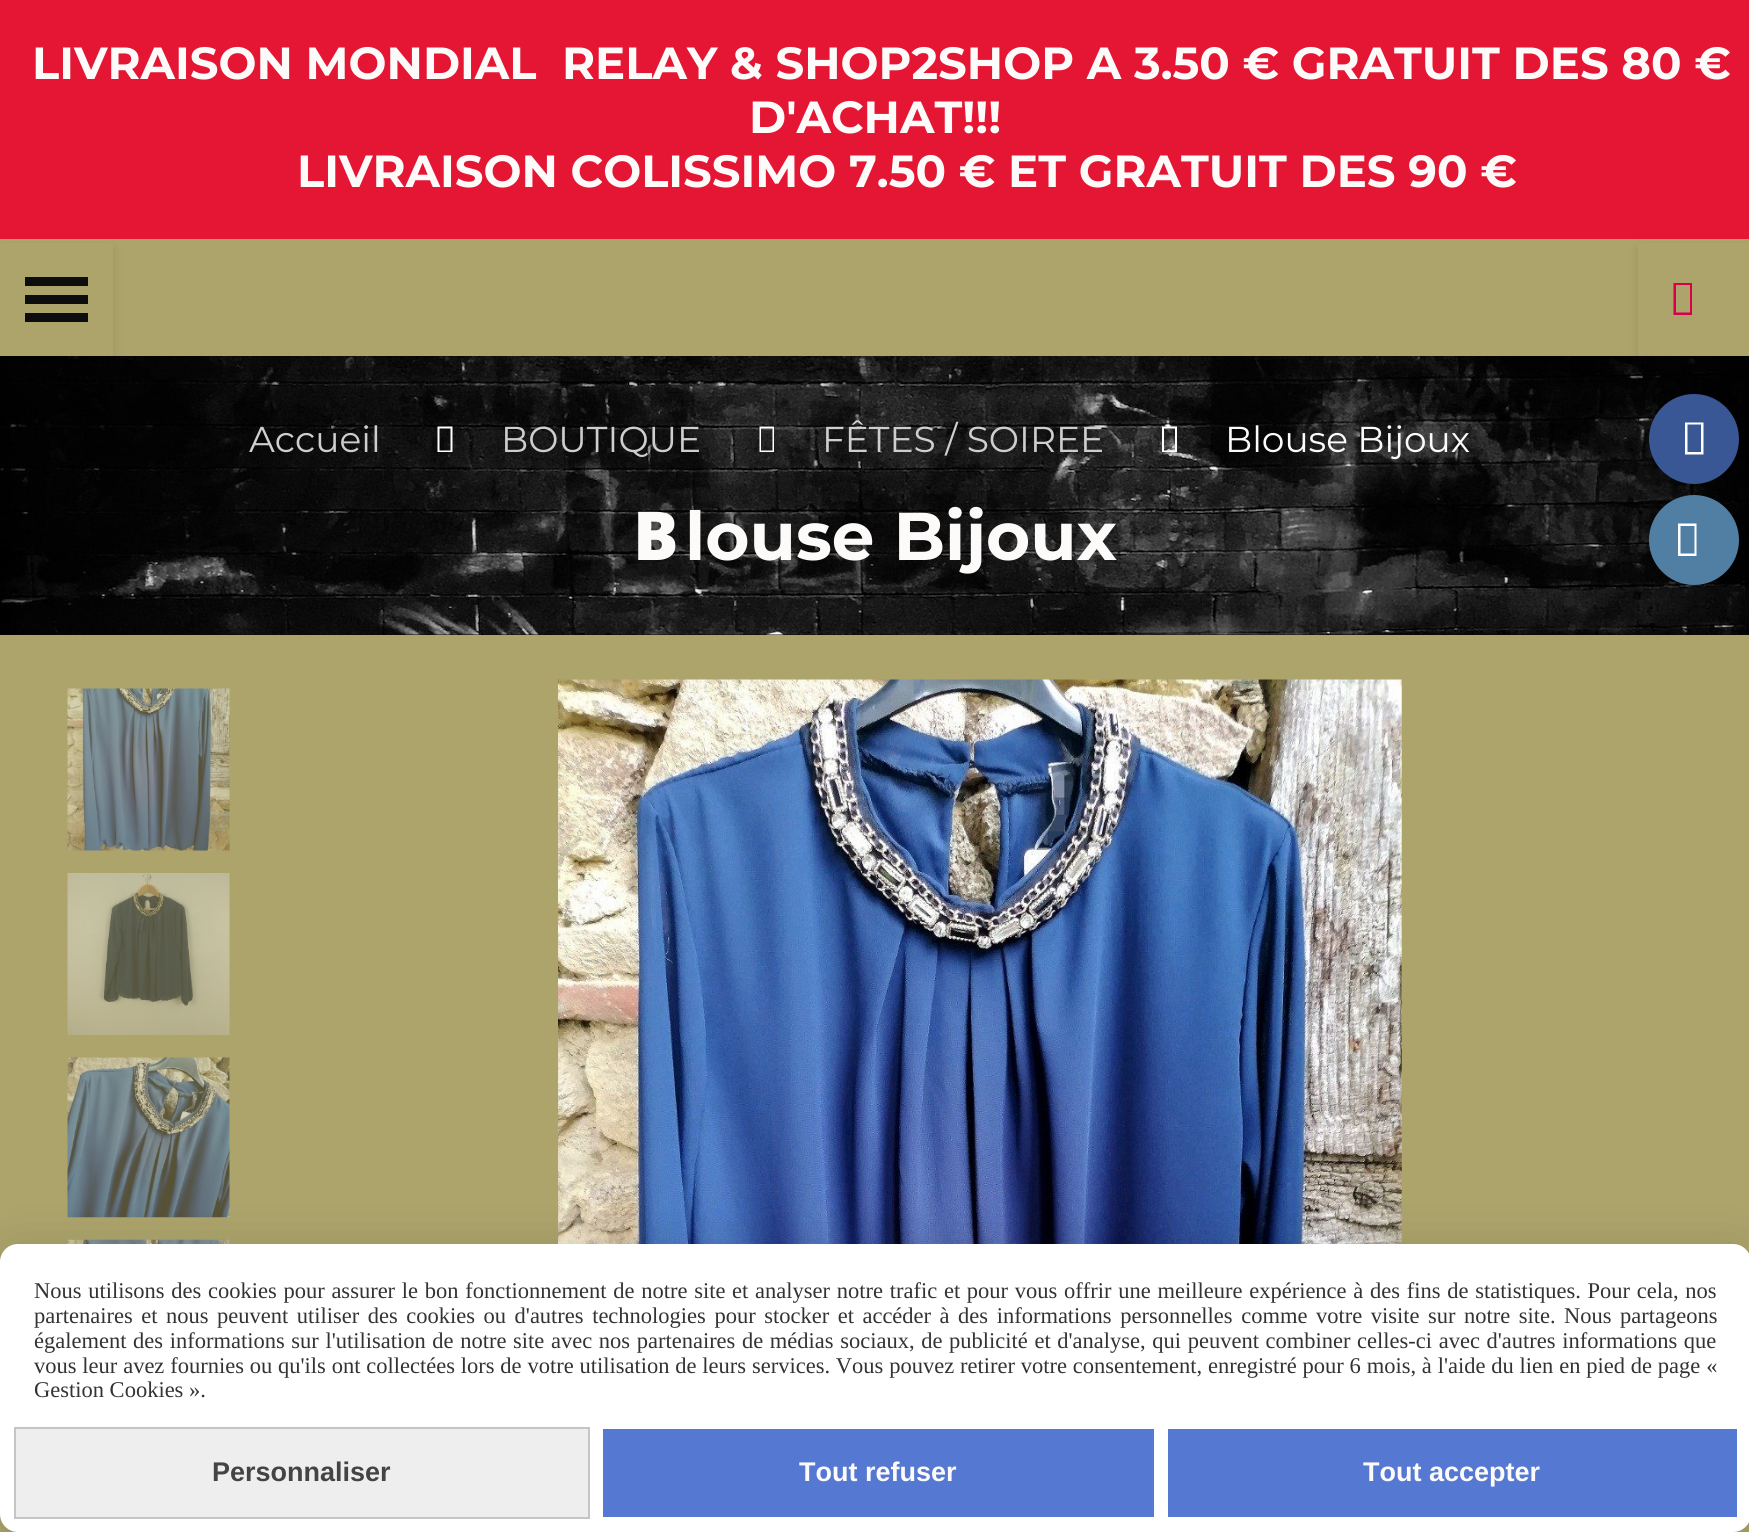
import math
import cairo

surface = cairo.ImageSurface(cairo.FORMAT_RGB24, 1749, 1532)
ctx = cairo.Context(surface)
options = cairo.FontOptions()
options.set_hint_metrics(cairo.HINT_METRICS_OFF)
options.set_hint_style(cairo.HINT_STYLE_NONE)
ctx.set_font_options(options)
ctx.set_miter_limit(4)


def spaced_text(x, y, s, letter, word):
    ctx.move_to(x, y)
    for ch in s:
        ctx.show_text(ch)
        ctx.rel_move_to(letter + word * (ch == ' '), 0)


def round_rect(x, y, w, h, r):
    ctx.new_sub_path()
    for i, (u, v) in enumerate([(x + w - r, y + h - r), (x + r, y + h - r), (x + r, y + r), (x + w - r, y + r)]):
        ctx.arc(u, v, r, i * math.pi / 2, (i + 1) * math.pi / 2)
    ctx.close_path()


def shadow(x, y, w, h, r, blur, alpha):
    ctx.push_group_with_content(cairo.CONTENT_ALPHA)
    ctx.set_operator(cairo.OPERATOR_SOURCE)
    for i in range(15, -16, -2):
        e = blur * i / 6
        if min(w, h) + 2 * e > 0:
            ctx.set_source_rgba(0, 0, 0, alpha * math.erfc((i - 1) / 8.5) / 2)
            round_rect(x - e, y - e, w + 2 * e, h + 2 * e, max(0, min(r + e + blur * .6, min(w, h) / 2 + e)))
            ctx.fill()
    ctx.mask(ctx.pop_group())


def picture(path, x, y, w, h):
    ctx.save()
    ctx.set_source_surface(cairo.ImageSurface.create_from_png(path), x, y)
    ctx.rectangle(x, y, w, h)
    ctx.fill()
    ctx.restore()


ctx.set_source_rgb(0.675, 0.643, 0.42)
ctx.paint()
ctx.set_source_rgb(0.894, 0.086, 0.204)
ctx.rectangle(0, 0, 1749, 239)
ctx.fill()
ctx.select_font_face("Montserrat", cairo.FONT_SLANT_NORMAL, cairo.FONT_WEIGHT_BOLD)
ctx.set_font_size(45)
ctx.set_source_rgb(0.992, 0.98, 0.98)
ctx.move_to(32, 79)
ctx.show_text("LIVRAISON MONDIAL  RELAY & SHOP2SHOP A 3.50 € GRATUIT DES 80 €")
ctx.move_to(749, 133)
ctx.show_text("D'ACHAT!!!")
ctx.move_to(297, 187)
ctx.show_text("LIVRAISON COLISSIMO 7.50 € ET GRATUIT DES 90 €")
ctx.set_source_rgb(0.051, 0.051, 0.051)
ctx.rectangle(0, 634, 1749, 1)
ctx.fill()
picture("img1.png", 0, 356, 1749, 279)
ctx.set_source_rgb(0, 0, 0)
shadow(0, 248, 113, 112, 0, 5.5, 0.1)
ctx.set_source_rgb(0.675, 0.643, 0.42)
ctx.rectangle(0, 243, 113, 113)
ctx.fill()
ctx.set_source_rgb(0.051, 0.051, 0.051)
ctx.rectangle(25, 277, 63, 9)
ctx.fill()
ctx.rectangle(25, 295, 63, 9)
ctx.fill()
ctx.rectangle(25, 313, 63, 9)
ctx.fill()
ctx.set_source_rgb(0, 0, 0)
shadow(1638, 248, 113, 112, 0, 5.5, 0.1)
ctx.set_source_rgb(0.675, 0.643, 0.42)
ctx.rectangle(1638, 243, 111, 113)
ctx.fill()
ctx.set_source_rgb(0.843, 0, 0.286)
ctx.new_path()
ctx.move_to(1673.5, 315)
ctx.line_to(1673.5, 283)
ctx.line_to(1692, 283)
ctx.line_to(1692, 315)
ctx.close_path()
ctx.move_to(1676, 312.5)
ctx.line_to(1690, 312.5)
ctx.line_to(1690, 285)
ctx.line_to(1676, 285)
ctx.close_path()
ctx.fill()
ctx.select_font_face("Montserrat")
ctx.set_font_size(36)
ctx.set_source_rgb(0.808, 0.808, 0.808)
ctx.move_to(249, 452)
ctx.show_text("Accueil")
ctx.set_source_rgb(1, 1, 1)
ctx.new_path()
ctx.move_to(437.5, 452)
ctx.line_to(437.5, 426.5)
ctx.line_to(452.5, 426.5)
ctx.line_to(452.5, 452)
ctx.close_path()
ctx.move_to(439.5, 450.5)
ctx.line_to(450.5, 450.5)
ctx.line_to(450.5, 428.5)
ctx.line_to(439.5, 428.5)
ctx.close_path()
ctx.fill()
ctx.set_source_rgb(0.808, 0.808, 0.808)
ctx.move_to(501, 452)
ctx.show_text("BOUTIQUE")
ctx.set_source_rgb(1, 1, 1)
ctx.new_path()
ctx.move_to(759.5, 452)
ctx.line_to(759.5, 426.5)
ctx.line_to(774, 426.5)
ctx.line_to(774, 452)
ctx.close_path()
ctx.move_to(761, 450.5)
ctx.line_to(772.5, 450.5)
ctx.line_to(772.5, 428.5)
ctx.line_to(761, 428.5)
ctx.close_path()
ctx.fill()
ctx.set_source_rgb(0.808, 0.808, 0.808)
ctx.move_to(822, 452)
ctx.show_text("FÊTES / SOIREE")
ctx.set_source_rgb(1, 1, 1)
ctx.new_path()
ctx.move_to(1162, 452)
ctx.line_to(1162, 426.5)
ctx.line_to(1177, 426.5)
ctx.line_to(1177, 452)
ctx.close_path()
ctx.move_to(1164, 450.5)
ctx.line_to(1175, 450.5)
ctx.line_to(1175, 428.5)
ctx.line_to(1164, 428.5)
ctx.close_path()
ctx.fill()
ctx.set_source_rgb(0.992, 0.98, 0.98)
ctx.move_to(1225, 452)
ctx.show_text("Blouse Bijoux")
ctx.select_font_face("Noto Sans Black")
ctx.set_font_size(67.5)
ctx.move_to(633, 560)
ctx.show_text("B")
ctx.select_font_face("Montserrat", cairo.FONT_SLANT_NORMAL, cairo.FONT_WEIGHT_BOLD)
ctx.move_to(685, 560)
ctx.show_text("louse Bijoux")
picture("img2.png", 67, 688, 163, 163)
picture("img3.png", 67, 873, 163, 162)
picture("img4.png", 67, 1057, 163, 161)
picture("img5.png", 67, 1239, 163, 5)
picture("img6.png", 558, 679, 844, 565)
ctx.set_source_rgb(0.227, 0.341, 0.584)
ctx.arc(1694, 439, 45, 0, 2 * math.pi)
ctx.fill()
ctx.set_source_rgb(1, 1, 1)
ctx.new_path()
ctx.move_to(1685, 454.5)
ctx.line_to(1685, 422.5)
ctx.line_to(1703.5, 422.5)
ctx.line_to(1703.5, 454.5)
ctx.close_path()
ctx.move_to(1687.5, 452)
ctx.line_to(1701, 452)
ctx.line_to(1701, 424.5)
ctx.line_to(1687.5, 424.5)
ctx.close_path()
ctx.fill()
ctx.set_source_rgb(0.318, 0.498, 0.643)
ctx.arc(1694, 540, 45, 0, 2 * math.pi)
ctx.fill()
ctx.set_source_rgb(1, 1, 1)
ctx.new_path()
ctx.move_to(1678, 556)
ctx.line_to(1678, 523.5)
ctx.line_to(1696.5, 523.5)
ctx.line_to(1696.5, 556)
ctx.close_path()
ctx.move_to(1680.5, 553.5)
ctx.line_to(1694.5, 553.5)
ctx.line_to(1694.5, 526)
ctx.line_to(1680.5, 526)
ctx.close_path()
ctx.fill()
ctx.set_source_rgb(0, 0, 0)
shadow(0, 1253, 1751, 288, 18, 27, 0.15)
ctx.set_source_rgb(1, 1, 1)
round_rect(0, 1244, 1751, 288, 18)
ctx.fill()
ctx.select_font_face("Liberation Serif")
ctx.set_font_size(22.5)
ctx.set_source_rgb(0.2, 0.2, 0.2)
spaced_text(34, 1298, "Nous utilisons des cookies pour assurer le bon fonctionnement de notre site et analyser notre trafic et pour vous offrir une meilleure expérience à des fins de statistiques. Pour cela, nos", 0, 1.1)
spaced_text(34, 1323, "partenaires et nous peuvent utiliser des cookies ou d'autres technologies pour stocker et accéder à des informations personnelles comme votre visite sur notre site. Nous partageons", 0, 2.9)
spaced_text(34, 1348, "également des informations sur l'utilisation de notre site avec nos partenaires de médias sociaux, de publicité et d'analyse, qui peuvent combiner celles-ci avec d'autres informations que", 0, 1)
spaced_text(34, 1373, "vous leur avez fournies ou qu'ils ont collectées lors de votre utilisation de leurs services. Vous pouvez retirer votre consentement, enregistré pour 6 mois, à l'aide du lien en pied de page «", 0, 0.2)
ctx.move_to(34, 1397)
ctx.show_text("Gestion Cookies ».")
ctx.set_source_rgb(0.933, 0.933, 0.933)
ctx.rectangle(15, 1428, 574, 90)
ctx.fill_preserve()
ctx.set_source_rgb(0.773, 0.773, 0.773)
ctx.stroke()
ctx.select_font_face("Liberation Sans", cairo.FONT_SLANT_NORMAL, cairo.FONT_WEIGHT_BOLD)
ctx.set_font_size(27)
ctx.set_source_rgb(0.267, 0.267, 0.267)
ctx.move_to(212, 1481)
ctx.show_text("Personnaliser")
ctx.set_source_rgb(0.333, 0.475, 0.824)
ctx.rectangle(603, 1429, 551, 88)
ctx.fill()
ctx.set_source_rgb(0.992, 0.98, 0.98)
ctx.move_to(799, 1481)
ctx.show_text("Tout refuser")
ctx.set_source_rgb(0.333, 0.475, 0.824)
ctx.rectangle(1168, 1429, 569, 88)
ctx.fill()
ctx.set_source_rgb(0.992, 0.98, 0.98)
ctx.move_to(1363, 1481)
ctx.show_text("Tout accepter")
surface.write_to_png("page.png")
